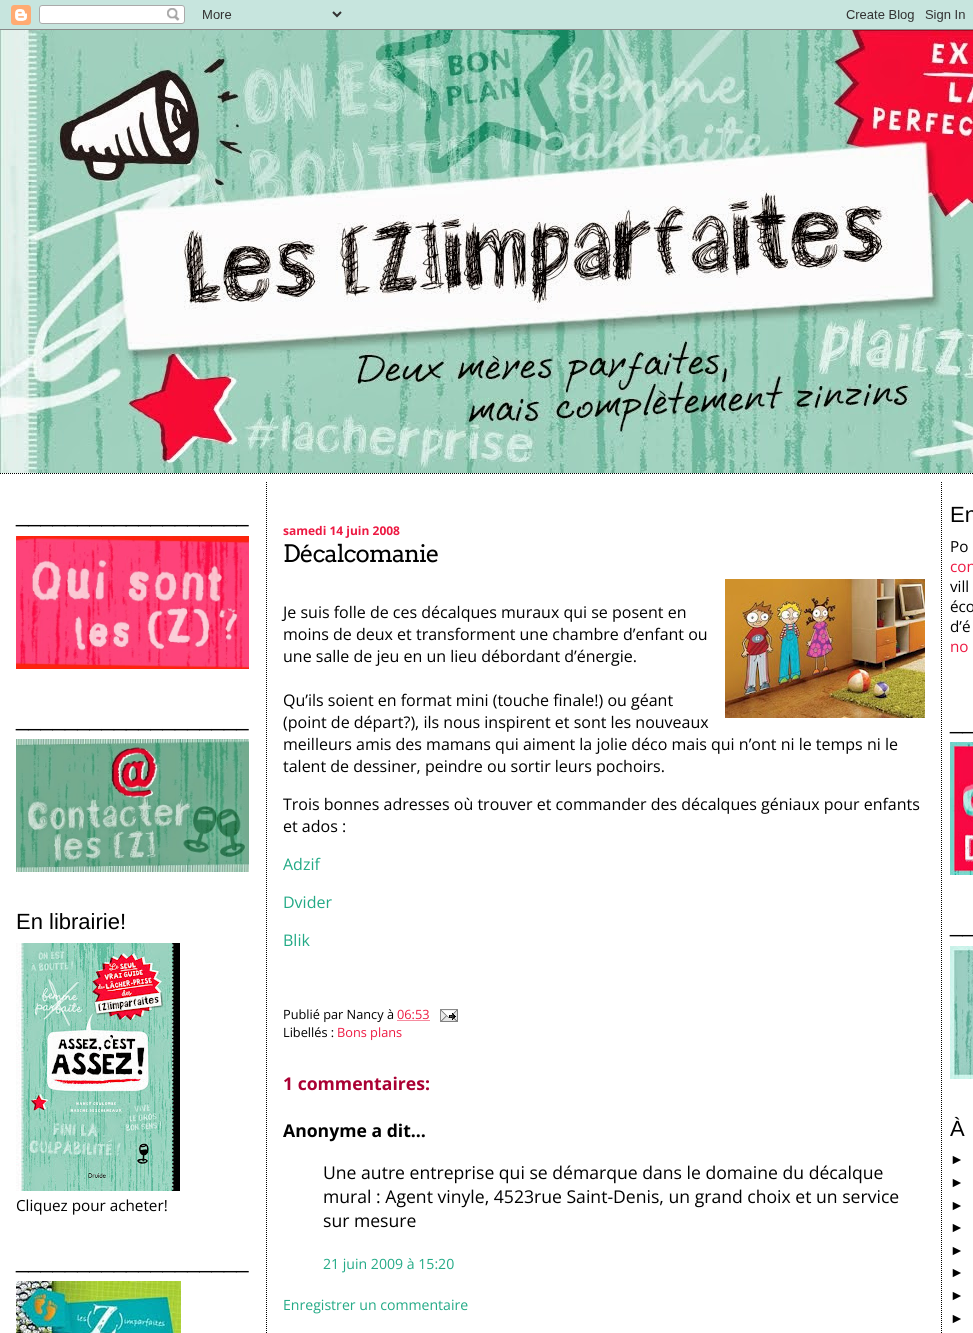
import math
import cairo

surface = cairo.ImageSurface(cairo.FORMAT_RGB24, 973, 1333)
ctx = cairo.Context(surface)
options = cairo.FontOptions()
options.set_hint_metrics(cairo.HINT_METRICS_OFF)
options.set_hint_style(cairo.HINT_STYLE_NONE)
ctx.set_font_options(options)
ctx.set_miter_limit(4)


def spaced_text(x, y, s, letter, word):
    ctx.move_to(x, y)
    for ch in s:
        ctx.show_text(ch)
        ctx.rel_move_to(letter + word * (ch == ' '), 0)


def picture(path, x, y, w, h):
    ctx.save()
    ctx.set_source_surface(cairo.ImageSurface.create_from_png(path), x, y)
    ctx.rectangle(x, y, w, h)
    ctx.fill()
    ctx.restore()


ctx.set_source_rgb(0.635, 0.831, 0.784)
ctx.paint()
picture("img1.png", 0, 0, 973, 30)
picture("img2.png", 0, 30, 973, 443)
ctx.set_source_rgb(1, 1, 1)
ctx.rectangle(0, 473, 973, 860)
ctx.fill()
ctx.new_path()
ctx.move_to(0, 473.5)
ctx.line_to(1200, 473.5)
ctx.set_source_rgb(0, 0, 0)
ctx.set_line_width(1)
ctx.set_dash([1, 1])
ctx.stroke()
ctx.select_font_face("Liberation Sans")
ctx.set_font_size(22)
ctx.move_to(16, 522)
ctx.show_text("___________________")
picture("img3.png", 16, 536, 233, 133)
ctx.move_to(16, 726)
ctx.show_text("___________________")
picture("img4.png", 16, 739, 233, 133)
ctx.move_to(16, 929)
ctx.show_text("En librairie!")
picture("img5.png", 16, 943, 164, 248)
ctx.select_font_face("Open Sans")
ctx.set_font_size(15.25)
ctx.move_to(16, 1211)
ctx.show_text("Cliquez pour acheter!")
ctx.select_font_face("Liberation Sans")
ctx.set_font_size(22)
ctx.move_to(16, 1268)
ctx.show_text("___________________")
picture("img6.png", 16, 1281, 165, 52)
ctx.new_path()
ctx.move_to(941.5, 482)
ctx.line_to(941.5, 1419)
ctx.stroke()
ctx.new_path()
ctx.move_to(266.5, 482)
ctx.line_to(266.5, 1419)
ctx.stroke()
ctx.select_font_face("Open Sans", cairo.FONT_SLANT_NORMAL, cairo.FONT_WEIGHT_BOLD)
ctx.set_font_size(12)
ctx.set_source_rgb(0.929, 0.098, 0.259)
ctx.move_to(283, 535)
ctx.show_text("samedi 14 juin 2008")
ctx.select_font_face("Arvo")
ctx.set_font_size(24)
ctx.set_source_rgb(0, 0, 0)
spaced_text(283, 562, "Décalcomanie", -1, 0)
ctx.select_font_face("Open Sans")
ctx.set_font_size(16)
ctx.move_to(283, 618)
ctx.show_text("Je suis folle de ces décalques muraux qui se posent en")
picture("img7.png", 725, 579, 200, 139)
ctx.move_to(283, 640)
ctx.show_text("moins de deux et transforment une chambre d’enfant ou")
ctx.move_to(283, 662)
ctx.show_text("une salle de jeu en un lieu débordant d’énergie.")
ctx.move_to(283, 706)
ctx.show_text("Qu’ils soient en format mini (touche finale!) ou géant")
ctx.move_to(283, 728)
ctx.show_text("(point de départ?), ils nous inspirent et sont les nouveaux")
ctx.move_to(283, 750)
ctx.show_text("meilleurs amis des mamans qui aiment la jolie déco mais qui n’ont ni le temps ni le")
ctx.move_to(283, 772)
ctx.show_text("talent de dessiner, peindre ou sortir leurs pochoirs.")
ctx.move_to(283, 810)
ctx.show_text("Trois bonnes adresses où trouver et commander des décalques géniaux pour enfants")
ctx.move_to(283, 832)
ctx.show_text("et ados :")
ctx.set_source_rgb(0.137, 0.667, 0.525)
ctx.move_to(283, 870)
ctx.show_text("Adzif")
ctx.move_to(283, 908)
ctx.show_text("Dvider")
ctx.move_to(283, 946)
ctx.show_text("Blik")
ctx.set_font_size(12.75)
ctx.set_source_rgb(0, 0, 0)
ctx.move_to(283, 1019)
ctx.show_text("Publié par Nancy à")
ctx.set_source_rgb(0.929, 0.098, 0.259)
ctx.move_to(397, 1019)
ctx.show_text("06:53")
ctx.new_path()
ctx.move_to(397.5, 1020.5)
ctx.line_to(430, 1020.5)
ctx.stroke()
picture("img8.png", 440, 1009, 18, 13)
ctx.set_source_rgb(0, 0, 0)
ctx.move_to(283, 1037)
ctx.show_text("Libellés :")
ctx.set_source_rgb(0.929, 0.098, 0.259)
ctx.move_to(337, 1037)
ctx.show_text("Bons plans")
ctx.select_font_face("Open Sans", cairo.FONT_SLANT_NORMAL, cairo.FONT_WEIGHT_BOLD)
ctx.set_font_size(17.6)
ctx.set_source_rgb(0.667, 0, 0.2)
ctx.move_to(283, 1090)
ctx.show_text("1 commentaires:")
ctx.set_source_rgb(0, 0, 0)
ctx.move_to(283, 1137)
ctx.show_text("Anonyme a dit…")
ctx.select_font_face("Open Sans")
ctx.move_to(323, 1179)
ctx.show_text("Une autre entreprise qui se démarque dans le domaine du décalque")
ctx.move_to(323, 1203)
ctx.show_text("mural : Agent vinyle, 4523rue Saint-Denis, un grand choix et un service")
ctx.move_to(323, 1227)
ctx.show_text("sur mesure")
ctx.set_font_size(14.1)
ctx.set_source_rgb(0.137, 0.667, 0.525)
ctx.move_to(323, 1269)
ctx.show_text("21 juin 2009 à 15:20")
ctx.move_to(283, 1310)
ctx.show_text("Enregistrer un commentaire")
ctx.select_font_face("Liberation Sans")
ctx.set_font_size(22)
ctx.set_source_rgb(0, 0, 0)
ctx.move_to(950, 522)
ctx.show_text("En")
ctx.select_font_face("Open Sans")
ctx.set_font_size(15.25)
ctx.move_to(950, 552)
ctx.show_text("Po")
ctx.set_source_rgb(0.929, 0.098, 0.259)
ctx.move_to(950, 572)
ctx.show_text("con")
ctx.set_source_rgb(0, 0, 0)
ctx.move_to(950, 592)
ctx.show_text("vill")
ctx.move_to(950, 612)
ctx.show_text("éco")
ctx.move_to(950, 632)
ctx.show_text("d’é")
ctx.set_source_rgb(0.929, 0.098, 0.259)
ctx.move_to(950, 652)
ctx.show_text("no")
ctx.select_font_face("Liberation Sans")
ctx.set_font_size(22)
ctx.set_source_rgb(0, 0, 0)
ctx.move_to(950, 729)
ctx.show_text("__")
picture("img9.png", 950, 742, 23, 133)
ctx.move_to(950, 932)
ctx.show_text("__")
picture("img10.png", 950, 946, 23, 133)
ctx.move_to(950, 1136)
ctx.show_text("À")
ctx.set_font_size(14)
ctx.move_to(950, 1164)
ctx.show_text("►")
ctx.move_to(950, 1187)
ctx.show_text("►")
ctx.move_to(950, 1210)
ctx.show_text("►")
ctx.move_to(950, 1232)
ctx.show_text("►")
ctx.move_to(950, 1255)
ctx.show_text("►")
ctx.move_to(950, 1277)
ctx.show_text("►")
ctx.move_to(950, 1300)
ctx.show_text("►")
ctx.move_to(950, 1323)
ctx.show_text("►")
surface.write_to_png("page.png")
